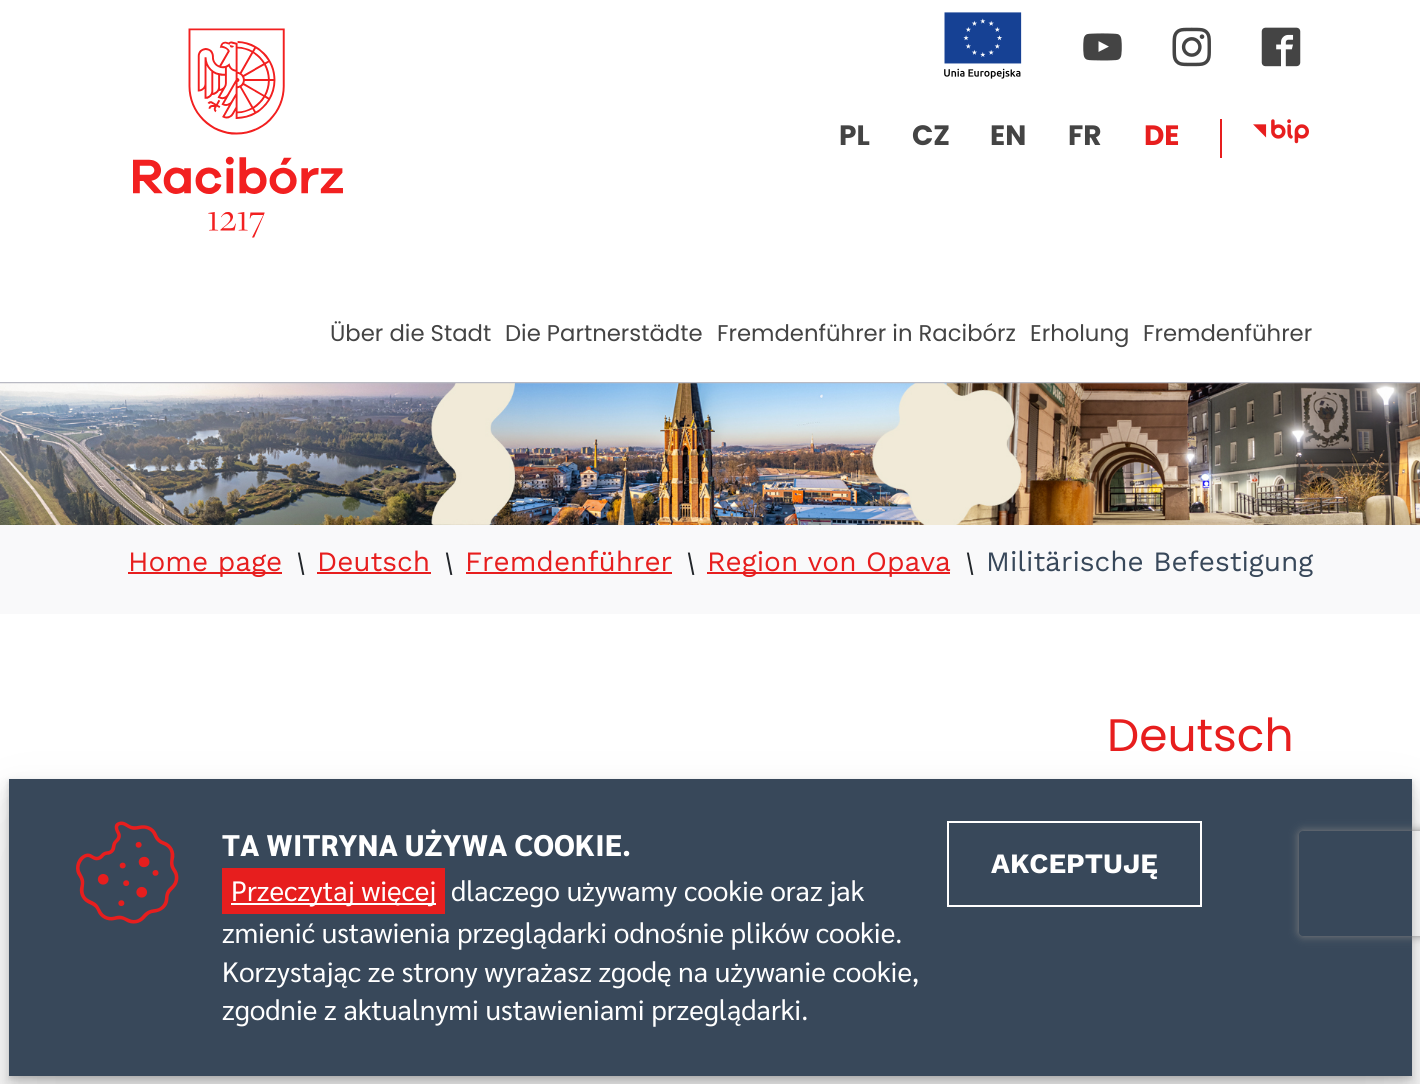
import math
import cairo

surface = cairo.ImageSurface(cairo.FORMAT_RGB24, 1420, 1084)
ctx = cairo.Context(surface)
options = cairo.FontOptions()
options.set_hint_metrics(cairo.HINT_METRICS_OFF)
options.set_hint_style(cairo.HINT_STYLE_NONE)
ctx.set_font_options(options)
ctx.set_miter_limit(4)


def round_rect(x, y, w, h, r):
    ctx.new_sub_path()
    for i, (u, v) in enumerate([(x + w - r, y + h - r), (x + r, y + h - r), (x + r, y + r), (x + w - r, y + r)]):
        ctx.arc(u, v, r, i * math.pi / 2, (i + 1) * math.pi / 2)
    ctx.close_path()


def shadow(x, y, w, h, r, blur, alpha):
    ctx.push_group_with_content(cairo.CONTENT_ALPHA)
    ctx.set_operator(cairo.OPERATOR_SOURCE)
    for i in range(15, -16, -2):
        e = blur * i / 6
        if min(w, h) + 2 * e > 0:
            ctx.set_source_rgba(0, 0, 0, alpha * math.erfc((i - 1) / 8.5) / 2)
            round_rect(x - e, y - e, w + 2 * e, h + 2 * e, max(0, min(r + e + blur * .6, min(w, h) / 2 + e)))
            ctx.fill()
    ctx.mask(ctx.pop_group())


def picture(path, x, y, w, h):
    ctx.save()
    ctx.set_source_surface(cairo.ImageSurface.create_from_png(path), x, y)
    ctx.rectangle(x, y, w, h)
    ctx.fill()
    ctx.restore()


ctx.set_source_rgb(1, 1, 1)
ctx.paint()
ctx.set_source_rgb(0.725, 0.729, 0.765)
ctx.rectangle(0, 382, 1420, 2)
ctx.fill()
picture("img1.png", 133, 28, 210, 210)
picture("img2.png", 944, 12, 78, 67)
picture("img3.png", 1083, 33, 39, 28)
picture("img4.png", 1172, 27, 39, 40)
picture("img5.png", 1261, 27, 40, 40)
ctx.select_font_face("Poppins", cairo.FONT_SLANT_NORMAL, cairo.FONT_WEIGHT_BOLD)
ctx.set_font_size(28)
ctx.set_source_rgb(0.267, 0.267, 0.267)
ctx.move_to(839, 145)
ctx.show_text("PL")
ctx.move_to(912, 145)
ctx.show_text("CZ")
ctx.move_to(990, 145)
ctx.show_text("EN")
ctx.move_to(1068, 145)
ctx.show_text("FR")
ctx.set_source_rgb(0.906, 0.118, 0.118)
ctx.move_to(1144, 145)
ctx.show_text("DE")
ctx.rectangle(1220, 119, 2, 39)
ctx.fill()
picture("img6.png", 1253, 119, 56, 25)
ctx.select_font_face("Poppins")
ctx.set_font_size(22.75)
ctx.set_source_rgb(0.267, 0.267, 0.267)
ctx.move_to(330, 341)
ctx.show_text("Über die Stadt")
ctx.move_to(505, 341)
ctx.show_text("Die Partnerstädte")
ctx.move_to(717, 341)
ctx.show_text("Fremdenführer in Racibórz")
ctx.move_to(1030, 341)
ctx.show_text("Erholung")
ctx.move_to(1143, 341)
ctx.show_text("Fremdenführer")
picture("img7.png", 0, 383, 1420, 142)
ctx.set_source_rgb(0.973, 0.976, 0.98)
ctx.rectangle(0, 525, 1420, 89)
ctx.fill()
ctx.set_source_rgb(0.906, 0.118, 0.118)
ctx.rectangle(128, 572, 154, 2)
ctx.fill()
ctx.select_font_face("Work Sans")
ctx.set_font_size(28)
ctx.move_to(128, 571)
ctx.show_text("Home page")
ctx.select_font_face("Work Sans", cairo.FONT_SLANT_ITALIC)
ctx.set_source_rgb(0.129, 0.145, 0.161)
ctx.move_to(294, 573)
ctx.show_text("\\")
ctx.select_font_face("Work Sans")
ctx.set_source_rgb(0.906, 0.118, 0.118)
ctx.move_to(317, 571)
ctx.show_text("Deutsch")
ctx.rectangle(317, 572, 114, 2)
ctx.fill()
ctx.select_font_face("Work Sans", cairo.FONT_SLANT_ITALIC)
ctx.set_source_rgb(0.129, 0.145, 0.161)
ctx.move_to(442, 573)
ctx.show_text("\\")
ctx.select_font_face("Work Sans")
ctx.set_source_rgb(0.906, 0.118, 0.118)
ctx.move_to(465, 571)
ctx.show_text("Fremdenführer")
ctx.rectangle(466, 572, 206, 2)
ctx.fill()
ctx.select_font_face("Work Sans", cairo.FONT_SLANT_ITALIC)
ctx.set_source_rgb(0.129, 0.145, 0.161)
ctx.move_to(684, 573)
ctx.show_text("\\")
ctx.set_source_rgb(0.906, 0.118, 0.118)
ctx.rectangle(707, 572, 243, 2)
ctx.fill()
ctx.select_font_face("Work Sans")
ctx.move_to(707, 571)
ctx.show_text("Region von Opava")
ctx.select_font_face("Work Sans", cairo.FONT_SLANT_ITALIC)
ctx.set_source_rgb(0.129, 0.145, 0.161)
ctx.move_to(963, 573)
ctx.show_text("\\")
ctx.select_font_face("Work Sans")
ctx.set_source_rgb(0.22, 0.282, 0.353)
ctx.move_to(986, 571)
ctx.show_text("Militärische Befestigung")
ctx.select_font_face("Poppins")
ctx.set_font_size(45.5)
ctx.set_source_rgb(0.906, 0.118, 0.118)
ctx.move_to(1107, 751)
ctx.show_text("Deutsch")
ctx.set_source_rgb(0, 0, 0)
shadow(9, 835, 1403, 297, 0, 56, 0.07)
shadow(9, 807, 1403, 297, 0, 28, 0.07)
shadow(9, 793, 1403, 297, 0, 14, 0.07)
shadow(9, 786, 1403, 297, 0, 7, 0.07)
shadow(9, 782, 1403, 298, 0, 3.5, 0.07)
shadow(9, 781, 1403, 297, 0, 2, 0.07)
ctx.set_source_rgb(0.22, 0.282, 0.353)
ctx.rectangle(9, 779, 1403, 297)
ctx.fill()
ctx.save()
ctx.set_fill_rule(cairo.FILL_RULE_EVEN_ODD)
ctx.new_path()
ctx.move_to(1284, 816)
ctx.line_to(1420, 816)
ctx.line_to(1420, 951)
ctx.line_to(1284, 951)
ctx.close_path()
ctx.move_to(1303, 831)
ctx.line_to(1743, 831)
ctx.curve_to(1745, 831, 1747, 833, 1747, 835)
ctx.line_to(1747, 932)
ctx.curve_to(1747, 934, 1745, 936, 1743, 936)
ctx.line_to(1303, 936)
ctx.curve_to(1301, 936, 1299, 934, 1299, 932)
ctx.line_to(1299, 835)
ctx.curve_to(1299, 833, 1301, 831, 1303, 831)
ctx.close_path()
ctx.clip()
ctx.set_source_rgb(0.502, 0.502, 0.502)
shadow(1299, 831, 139, 105, 4, 4.5, 1)
ctx.restore()
picture("img8.png", 76, 821, 103, 103)
ctx.select_font_face("Sarabun ExtraBold")
ctx.set_font_size(29.75)
ctx.set_source_rgb(1, 1, 1)
ctx.move_to(222, 856)
ctx.show_text("TA WITRYNA UŻYWA COOKIE.")
ctx.rectangle(948, 822, 253, 84)
ctx.stroke()
ctx.select_font_face("Work Sans", cairo.FONT_SLANT_NORMAL, cairo.FONT_WEIGHT_BOLD)
ctx.set_font_size(28)
ctx.move_to(991, 873)
ctx.show_text("AKCEPTUJĘ")
ctx.set_source_rgb(0.906, 0.118, 0.118)
ctx.rectangle(222, 868, 223, 46)
ctx.fill()
ctx.set_source_rgb(1, 1, 1)
ctx.rectangle(231, 903, 205, 2)
ctx.fill()
ctx.select_font_face("Sarabun")
ctx.move_to(231, 901)
ctx.show_text("Przeczytaj więcej")
ctx.move_to(451, 901)
ctx.show_text("dlaczego używamy cookie oraz jak")
ctx.move_to(222, 943)
ctx.show_text("zmienić ustawienia przeglądarki odnośnie plików cookie.")
ctx.move_to(222, 982)
ctx.show_text("Korzystając ze strony wyrażasz zgodę na używanie cookie,")
ctx.move_to(222, 1020)
ctx.show_text("zgodnie z aktualnymi ustawieniami przeglądarki.")
surface.write_to_png("page.png")
